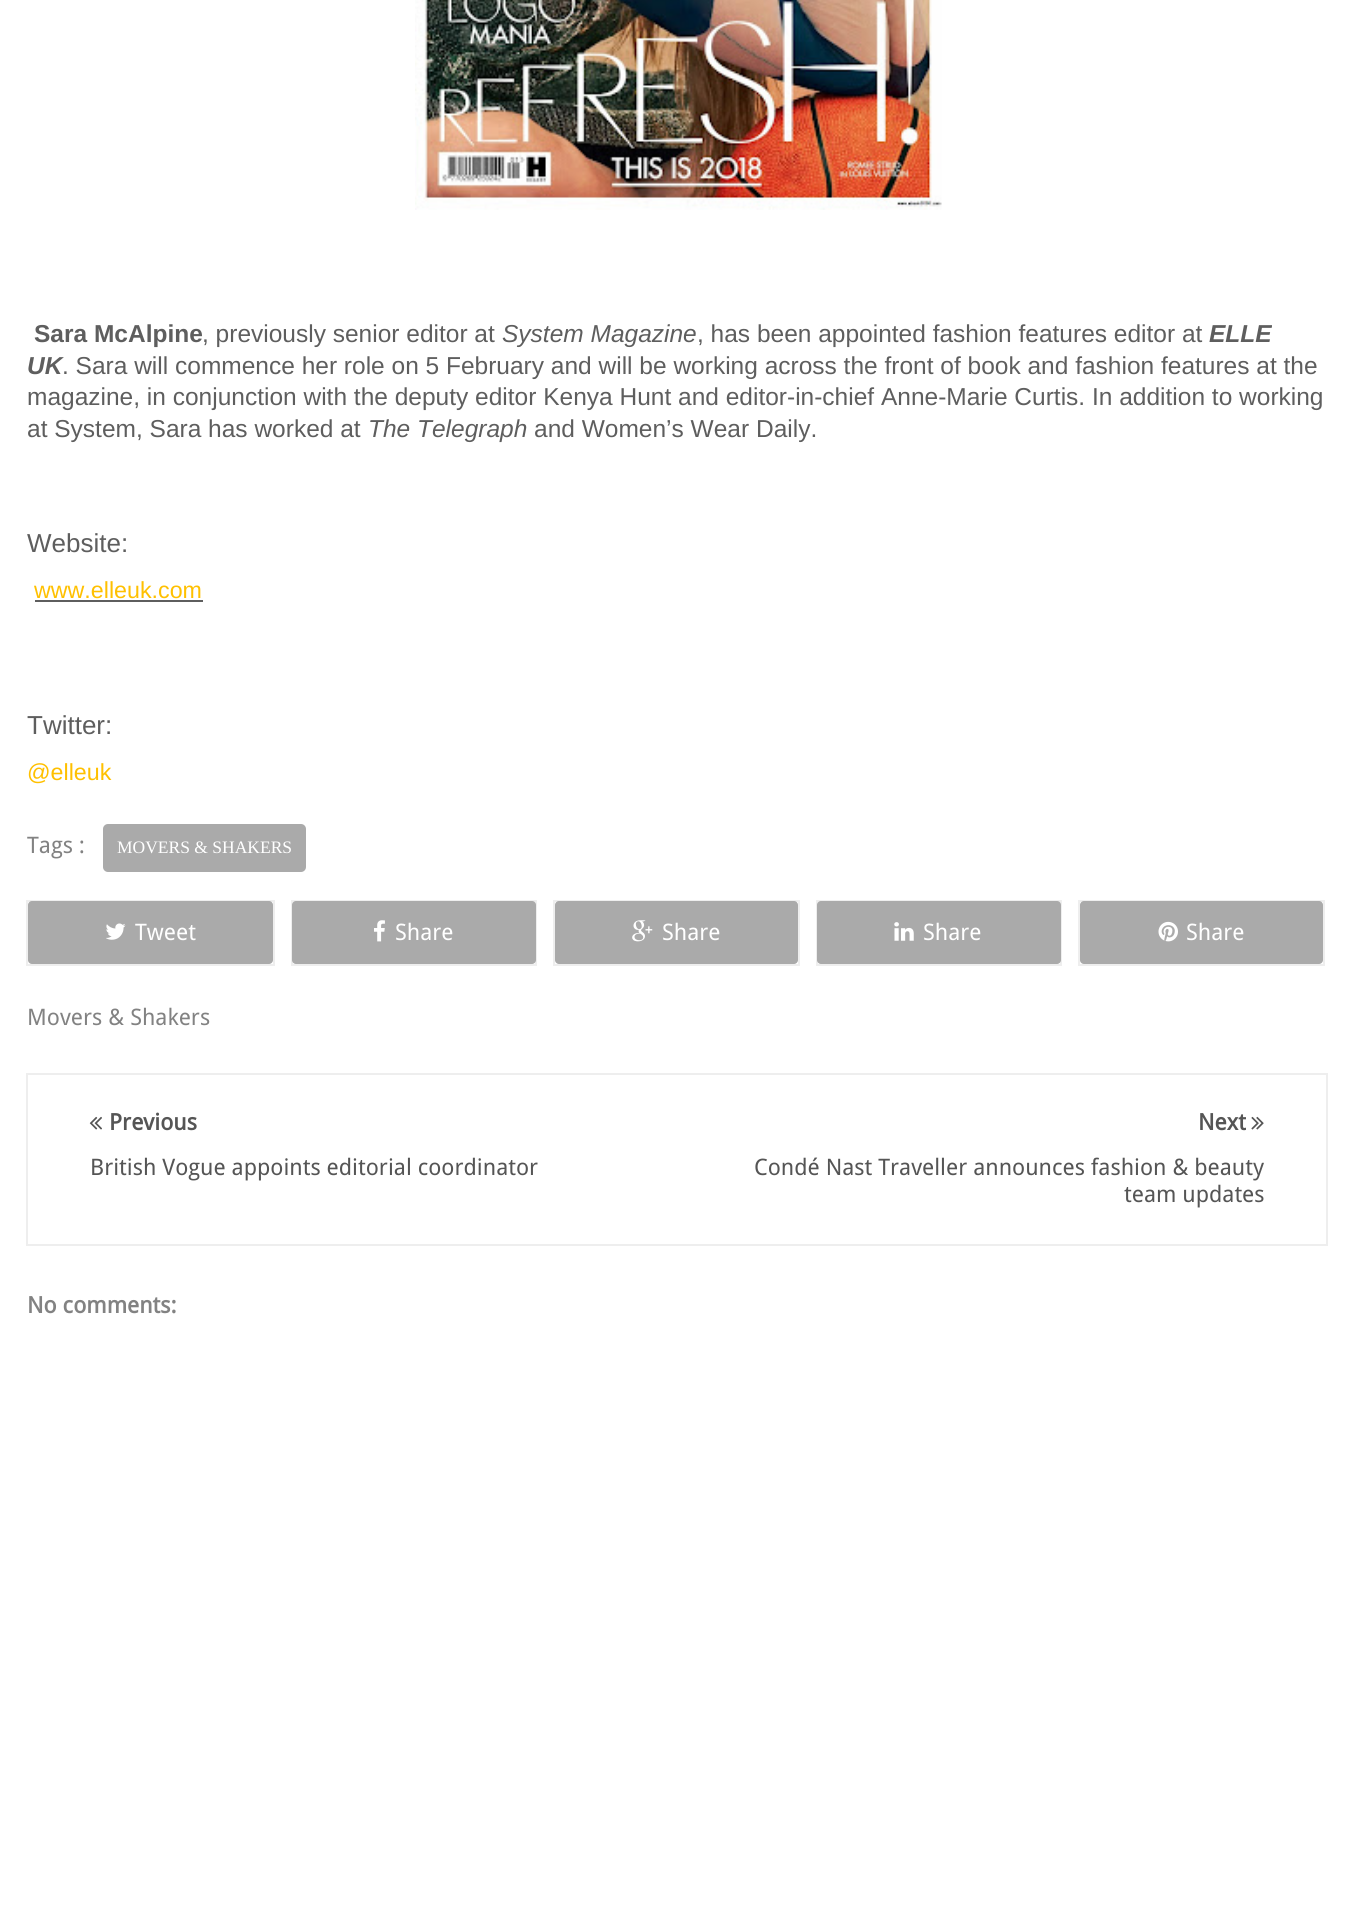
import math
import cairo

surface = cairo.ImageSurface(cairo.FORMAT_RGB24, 1354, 1911)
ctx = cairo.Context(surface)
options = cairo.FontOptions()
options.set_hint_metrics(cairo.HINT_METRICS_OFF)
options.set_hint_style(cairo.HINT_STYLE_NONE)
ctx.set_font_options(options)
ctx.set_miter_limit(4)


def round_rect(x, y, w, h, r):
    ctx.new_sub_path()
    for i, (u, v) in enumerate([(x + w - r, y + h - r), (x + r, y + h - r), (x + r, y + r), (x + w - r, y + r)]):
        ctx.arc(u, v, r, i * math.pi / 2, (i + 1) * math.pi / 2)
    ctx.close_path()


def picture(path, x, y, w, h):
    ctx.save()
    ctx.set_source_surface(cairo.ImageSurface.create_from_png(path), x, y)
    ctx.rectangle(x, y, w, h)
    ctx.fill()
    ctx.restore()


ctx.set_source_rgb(1, 1, 1)
ctx.paint()
picture("img1.png", 415, 0, 527, 210)
ctx.select_font_face("Liberation Sans", cairo.FONT_SLANT_NORMAL, cairo.FONT_WEIGHT_BOLD)
ctx.set_font_size(24.5)
ctx.set_source_rgb(0.369, 0.369, 0.369)
ctx.move_to(34, 342)
ctx.show_text("Sara McAlpine")
ctx.select_font_face("Liberation Sans")
ctx.move_to(202, 342)
ctx.show_text(", previously senior editor at")
ctx.select_font_face("Liberation Sans", cairo.FONT_SLANT_ITALIC)
ctx.move_to(502, 342)
ctx.show_text("System Magazine")
ctx.select_font_face("Liberation Sans")
ctx.move_to(697, 342)
ctx.show_text(", has been appointed fashion features editor at")
ctx.select_font_face("Liberation Sans", cairo.FONT_SLANT_ITALIC, cairo.FONT_WEIGHT_BOLD)
ctx.move_to(1209, 342)
ctx.show_text("ELLE")
ctx.move_to(27, 374)
ctx.show_text("UK")
ctx.select_font_face("Liberation Sans")
ctx.move_to(62, 374)
ctx.show_text(". Sara will commence her role on 5 February and will be working across the front of book and fashion features at the")
ctx.move_to(27, 405)
ctx.show_text("magazine, in conjunction with the deputy editor Kenya Hunt and editor-in-chief Anne-Marie Curtis. In addition to working")
ctx.move_to(27, 437)
ctx.show_text("at System, Sara has worked at")
ctx.select_font_face("Liberation Sans", cairo.FONT_SLANT_ITALIC)
ctx.move_to(368, 437)
ctx.show_text("The Telegraph")
ctx.select_font_face("Liberation Sans")
ctx.move_to(534, 437)
ctx.show_text("and Women’s Wear Daily.")
ctx.set_font_size(26)
ctx.move_to(27, 552)
ctx.show_text("Website:")
ctx.set_font_size(23.25)
ctx.set_source_rgb(1, 0.753, 0)
ctx.move_to(34, 598)
ctx.show_text("www.elleuk.com")
ctx.set_source_rgb(0.369, 0.369, 0.369)
ctx.rectangle(35, 600, 168, 2)
ctx.fill()
ctx.set_font_size(26)
ctx.move_to(27, 734)
ctx.show_text("Twitter:")
ctx.set_font_size(23.25)
ctx.set_source_rgb(1, 0.753, 0)
ctx.move_to(27, 780)
ctx.show_text("@elleuk")
ctx.select_font_face("Droid Sans")
ctx.set_font_size(22.75)
ctx.set_source_rgb(0.51, 0.51, 0.51)
ctx.move_to(27, 853)
ctx.show_text("Tags :")
ctx.set_source_rgb(0.667, 0.667, 0.667)
round_rect(103, 824, 203, 48, 5)
ctx.fill()
ctx.select_font_face("Liberation Serif")
ctx.set_font_size(17.5)
ctx.set_source_rgb(1, 1, 1)
ctx.move_to(117, 853)
ctx.show_text("MOVERS & SHAKERS")
ctx.rectangle(27, 901, 247, 64)
ctx.set_source_rgb(0.933, 0.933, 0.933)
ctx.stroke()
ctx.set_source_rgb(0.667, 0.667, 0.667)
round_rect(28, 901, 245, 63, 4)
ctx.fill()
picture("img2.png", 106, 923, 20, 17)
ctx.select_font_face("Droid Sans")
ctx.set_font_size(22.75)
ctx.set_source_rgb(1, 1, 1)
ctx.move_to(135, 940)
ctx.show_text("Tweet")
ctx.rectangle(292, 901, 244, 64)
ctx.set_source_rgb(0.933, 0.933, 0.933)
ctx.stroke()
ctx.set_source_rgb(0.667, 0.667, 0.667)
round_rect(292, 901, 244, 63, 4)
ctx.fill()
picture("img3.png", 374, 920, 11, 22)
ctx.set_source_rgb(1, 1, 1)
ctx.move_to(395, 940)
ctx.show_text("Share")
ctx.rectangle(554, 901, 245, 64)
ctx.set_source_rgb(0.933, 0.933, 0.933)
ctx.stroke()
ctx.set_source_rgb(0.667, 0.667, 0.667)
round_rect(555, 901, 243, 63, 4)
ctx.fill()
picture("img4.png", 632, 920, 21, 22)
ctx.set_source_rgb(1, 1, 1)
ctx.move_to(662, 940)
ctx.show_text("Share")
ctx.rectangle(817, 901, 244, 64)
ctx.set_source_rgb(0.933, 0.933, 0.933)
ctx.stroke()
ctx.set_source_rgb(0.667, 0.667, 0.667)
round_rect(817, 901, 244, 63, 4)
ctx.fill()
picture("img5.png", 894, 922, 20, 19)
ctx.set_source_rgb(1, 1, 1)
ctx.move_to(923, 940)
ctx.show_text("Share")
ctx.rectangle(1079, 901, 245, 64)
ctx.set_source_rgb(0.933, 0.933, 0.933)
ctx.stroke()
ctx.set_source_rgb(0.667, 0.667, 0.667)
round_rect(1080, 901, 243, 63, 4)
ctx.fill()
picture("img6.png", 1158, 921, 20, 21)
ctx.set_source_rgb(1, 1, 1)
ctx.move_to(1186, 940)
ctx.show_text("Share")
ctx.set_source_rgb(0.51, 0.51, 0.51)
ctx.move_to(27, 1025)
ctx.show_text("Movers & Shakers")
ctx.rectangle(27, 1074, 1300, 171)
ctx.set_source_rgb(0.933, 0.933, 0.933)
ctx.stroke()
picture("img7.png", 89, 1116, 13, 14)
ctx.select_font_face("Droid Sans", cairo.FONT_SLANT_NORMAL, cairo.FONT_WEIGHT_BOLD)
ctx.set_source_rgb(0.333, 0.333, 0.333)
ctx.move_to(109, 1130)
ctx.show_text("Previous")
ctx.select_font_face("Droid Sans")
ctx.move_to(90, 1175)
ctx.show_text("British Vogue appoints editorial coordinator")
ctx.select_font_face("Droid Sans", cairo.FONT_SLANT_NORMAL, cairo.FONT_WEIGHT_BOLD)
ctx.move_to(1198, 1130)
ctx.show_text("Next")
picture("img8.png", 1251, 1116, 13, 14)
ctx.select_font_face("Droid Sans")
ctx.move_to(754, 1175)
ctx.show_text("Condé Nast Traveller announces fashion & beauty")
ctx.move_to(1124, 1202)
ctx.show_text("team updates")
ctx.select_font_face("Droid Sans", cairo.FONT_SLANT_NORMAL, cairo.FONT_WEIGHT_BOLD)
ctx.set_source_rgb(0.51, 0.51, 0.51)
ctx.move_to(27, 1313)
ctx.show_text("No comments:")
surface.write_to_png("page.png")
